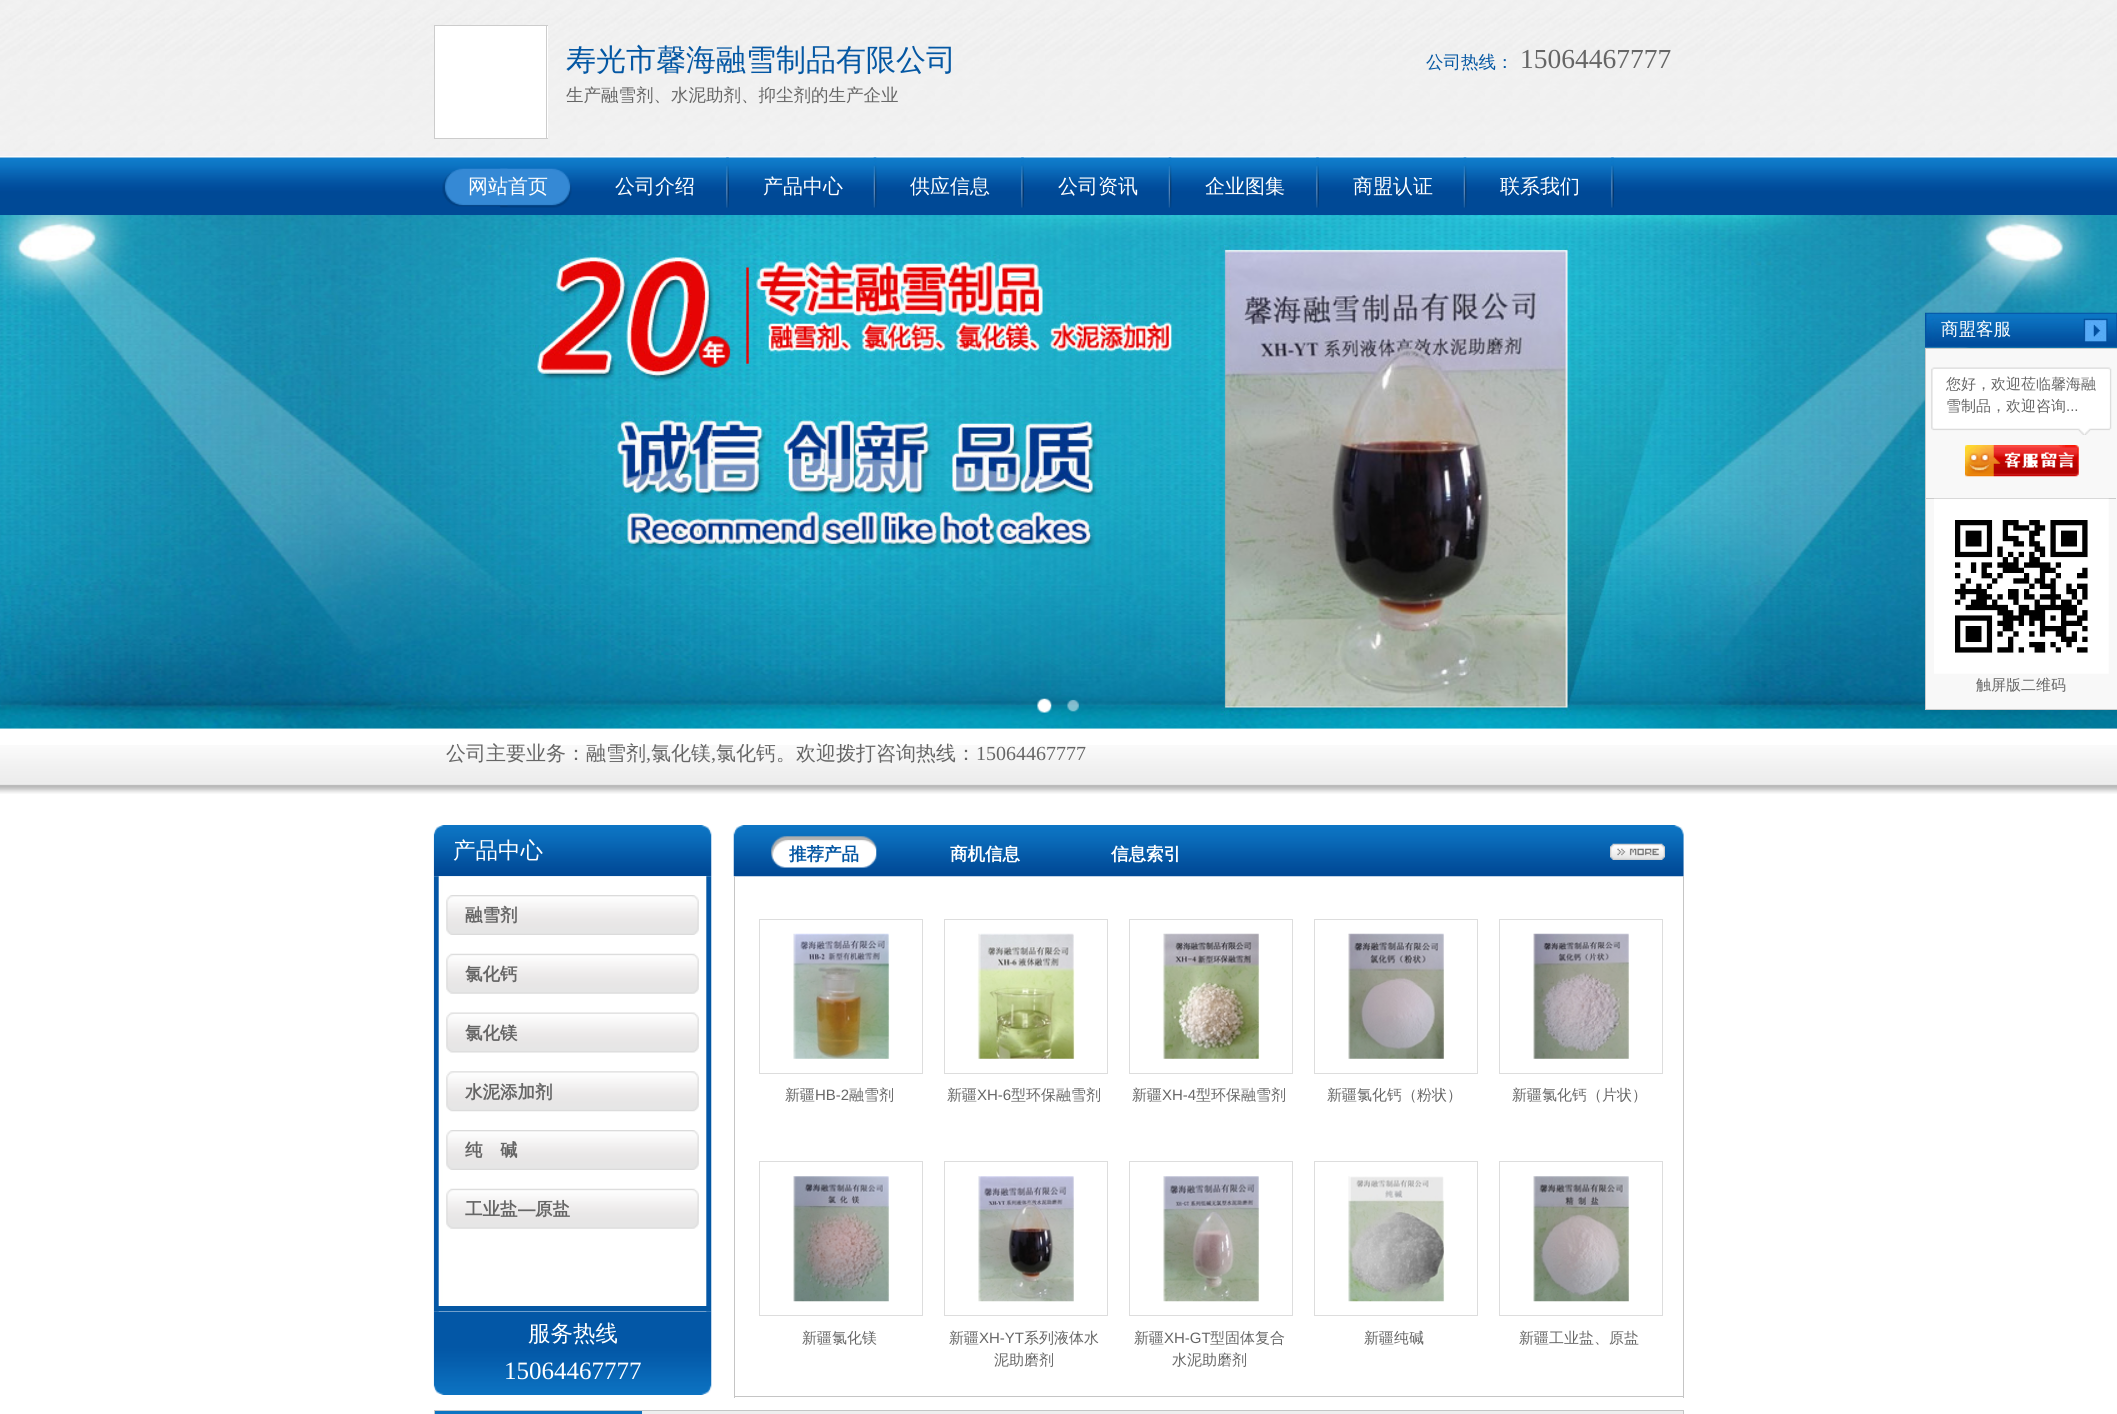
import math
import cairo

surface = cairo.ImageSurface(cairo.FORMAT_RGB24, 2117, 1414)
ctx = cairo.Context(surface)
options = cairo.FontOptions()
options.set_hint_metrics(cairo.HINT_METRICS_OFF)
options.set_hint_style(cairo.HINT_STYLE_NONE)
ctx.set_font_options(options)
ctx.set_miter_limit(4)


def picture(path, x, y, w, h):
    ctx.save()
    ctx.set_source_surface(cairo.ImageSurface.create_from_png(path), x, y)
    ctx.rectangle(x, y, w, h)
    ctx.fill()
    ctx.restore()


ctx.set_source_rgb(1, 1, 1)
ctx.paint()
picture("img1.png", 0, 0, 2117, 215)
ctx.set_source_rgb(1, 1, 1)
ctx.rectangle(435, 26, 113, 112)
ctx.fill()
ctx.set_source_rgb(0.8, 0.8, 0.8)
ctx.rectangle(434, 25, 114, 1)
ctx.fill()
ctx.rectangle(546, 25, 1, 114)
ctx.fill()
ctx.rectangle(434, 138, 114, 1)
ctx.fill()
ctx.rectangle(434, 25, 1, 114)
ctx.fill()
ctx.select_font_face("WenQuanYi Zen Hei Medium")
ctx.set_font_size(30)
ctx.set_source_rgb(0.016, 0.341, 0.639)
ctx.move_to(566, 70)
ctx.show_text("寿光市馨海融雪制品有限公司")
ctx.set_font_size(17.5)
ctx.set_source_rgb(0.4, 0.4, 0.4)
ctx.move_to(566, 101)
ctx.show_text("生产融雪剂、水泥助剂、抑尘剂的生产企业")
ctx.set_source_rgb(0.016, 0.341, 0.639)
ctx.move_to(1426, 68)
ctx.show_text("公司热线：")
ctx.select_font_face("Liberation Serif")
ctx.set_font_size(27.5)
ctx.set_source_rgb(0.4, 0.4, 0.4)
ctx.move_to(1520, 68)
ctx.show_text("15064467777")
picture("img2.png", 442, 168, 66, 39)
picture("img3.png", 500, 168, 72, 40)
ctx.select_font_face("WenQuanYi Zen Hei Medium")
ctx.set_font_size(20)
ctx.set_source_rgb(1, 1, 1)
ctx.move_to(468, 193)
ctx.show_text("网站首页")
picture("img4.png", 726, 157, 3, 51)
ctx.move_to(615, 193)
ctx.show_text("公司介绍")
picture("img5.png", 873, 157, 4, 51)
ctx.move_to(763, 193)
ctx.show_text("产品中心")
picture("img6.png", 1021, 157, 3, 51)
ctx.move_to(910, 193)
ctx.show_text("供应信息")
picture("img5.png", 1168, 157, 4, 51)
ctx.move_to(1058, 193)
ctx.show_text("公司资讯")
picture("img6.png", 1316, 157, 3, 51)
ctx.move_to(1205, 193)
ctx.show_text("企业图集")
picture("img7.png", 1463, 157, 4, 51)
ctx.move_to(1353, 193)
ctx.show_text("商盟认证")
picture("img6.png", 1611, 157, 3, 51)
ctx.move_to(1500, 193)
ctx.show_text("联系我们")
picture("img8.png", 0, 215, 2117, 514)
picture("img9.png", 1037, 698, 15, 15)
picture("img10.png", 1067, 699, 12, 13)
picture("img11.png", 1925, 312, 192, 36)
ctx.set_font_size(17.5)
ctx.move_to(1941, 335)
ctx.show_text("商盟客服")
picture("img12.png", 2083, 318, 25, 24)
ctx.set_source_rgb(0.969, 0.969, 0.969)
ctx.rectangle(1925.5, 348.5, 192, 361)
ctx.fill_preserve()
ctx.set_source_rgb(0.8, 0.8, 0.8)
ctx.set_line_width(1)
ctx.stroke()
ctx.rectangle(1926, 498, 190, 1)
ctx.fill()
picture("img13.png", 1931, 367, 181, 68)
ctx.set_font_size(15)
ctx.set_source_rgb(0.4, 0.4, 0.4)
ctx.move_to(1946, 389)
ctx.show_text("您好，欢迎莅临馨海融")
ctx.move_to(1946, 411)
ctx.show_text("雪制品，欢迎咨询")
ctx.select_font_face("Liberation Sans")
ctx.move_to(2066, 411)
ctx.show_text("...")
picture("img14.png", 1965, 445, 114, 32)
picture("img15.png", 1934, 498, 175, 176)
ctx.select_font_face("WenQuanYi Zen Hei Medium")
ctx.move_to(1976, 690)
ctx.show_text("触屏版二维码")
picture("img16.png", 0, 745, 2117, 49)
ctx.set_font_size(20)
ctx.move_to(446, 760)
ctx.show_text("公司主要业务：融雪剂")
ctx.select_font_face("Liberation Serif")
ctx.move_to(646, 760)
ctx.show_text(",")
ctx.select_font_face("WenQuanYi Zen Hei Medium")
ctx.move_to(651, 760)
ctx.show_text("氯化镁")
ctx.select_font_face("Liberation Serif")
ctx.move_to(711, 760)
ctx.show_text(",")
ctx.select_font_face("WenQuanYi Zen Hei Medium")
ctx.move_to(716, 760)
ctx.show_text("氯化钙。欢迎拨打咨询热线：")
ctx.select_font_face("Liberation Serif")
ctx.move_to(976, 760)
ctx.show_text("15064467777")
picture("img17.png", 433, 825, 279, 52)
ctx.select_font_face("WenQuanYi Zen Hei Medium")
ctx.set_font_size(22.5)
ctx.set_source_rgb(1, 1, 1)
ctx.move_to(453, 858)
ctx.show_text("产品中心")
picture("img23.png", 433, 1311, 279, 84)
picture("img18.png", 433, 876, 279, 436)
ctx.set_source_rgb(0.016, 0.341, 0.639)
ctx.rectangle(434, 1306, 277, 5)
ctx.fill()
picture("img19.png", 446, 895, 253, 40)
ctx.select_font_face("WenQuanYi Zen Hei", cairo.FONT_SLANT_NORMAL, cairo.FONT_WEIGHT_BOLD)
ctx.set_font_size(17.5)
ctx.set_source_rgb(0.4, 0.4, 0.4)
ctx.move_to(465, 921)
ctx.show_text("融雪剂")
picture("img20.png", 446, 953, 253, 41)
ctx.move_to(465, 980)
ctx.show_text("氯化钙")
picture("img21.png", 446, 1012, 253, 41)
ctx.move_to(465, 1039)
ctx.show_text("氯化镁")
picture("img22.png", 446, 1071, 253, 41)
ctx.move_to(465, 1098)
ctx.show_text("水泥添加剂")
picture("img19.png", 446, 1130, 253, 40)
ctx.move_to(465, 1156)
ctx.show_text("纯　碱")
picture("img20.png", 446, 1188, 253, 41)
ctx.move_to(465, 1215)
ctx.show_text("工业盐")
ctx.select_font_face("Liberation Sans", cairo.FONT_SLANT_NORMAL, cairo.FONT_WEIGHT_BOLD)
ctx.move_to(518, 1215)
ctx.show_text("—")
ctx.select_font_face("WenQuanYi Zen Hei", cairo.FONT_SLANT_NORMAL, cairo.FONT_WEIGHT_BOLD)
ctx.move_to(535, 1215)
ctx.show_text("原盐")
ctx.select_font_face("WenQuanYi Zen Hei Medium")
ctx.set_font_size(22.5)
ctx.set_source_rgb(1, 1, 1)
ctx.move_to(528, 1341)
ctx.show_text("服务热线")
ctx.select_font_face("Liberation Serif")
ctx.set_font_size(25)
ctx.move_to(504, 1379)
ctx.show_text("15064467777")
picture("img24.png", 733, 825, 951, 52)
picture("img25.png", 771, 836, 106, 32)
ctx.select_font_face("WenQuanYi Zen Hei", cairo.FONT_SLANT_NORMAL, cairo.FONT_WEIGHT_BOLD)
ctx.set_font_size(17.5)
ctx.set_source_rgb(0.016, 0.341, 0.639)
ctx.move_to(789, 860)
ctx.show_text("推荐产品")
ctx.set_source_rgb(1, 1, 1)
ctx.move_to(950, 860)
ctx.show_text("商机信息")
ctx.move_to(1111, 860)
ctx.show_text("信息索引")
picture("img26.png", 1610, 843, 55, 17)
ctx.set_source_rgb(0.773, 0.773, 0.773)
ctx.rectangle(1683, 876, 1, 522)
ctx.fill()
ctx.rectangle(734, 1396, 950, 1)
ctx.fill()
ctx.rectangle(734, 876, 1, 522)
ctx.fill()
ctx.rectangle(759.5, 919.5, 163, 154)
ctx.set_source_rgb(0.867, 0.867, 0.867)
ctx.stroke()
picture("img27.png", 793, 933, 97, 126)
ctx.select_font_face("WenQuanYi Zen Hei Medium")
ctx.set_font_size(15)
ctx.set_source_rgb(0.4, 0.4, 0.4)
ctx.move_to(785, 1100)
ctx.show_text("新疆")
ctx.select_font_face("Liberation Sans")
ctx.move_to(815, 1100)
ctx.show_text("HB-2")
ctx.select_font_face("WenQuanYi Zen Hei Medium")
ctx.move_to(849, 1100)
ctx.show_text("融雪剂")
ctx.rectangle(944.5, 919.5, 163, 154)
ctx.set_source_rgb(0.867, 0.867, 0.867)
ctx.stroke()
picture("img28.png", 977, 933, 98, 126)
ctx.set_source_rgb(0.4, 0.4, 0.4)
ctx.move_to(947, 1100)
ctx.show_text("新疆")
ctx.select_font_face("Liberation Sans")
ctx.move_to(977, 1100)
ctx.show_text("XH-6")
ctx.select_font_face("WenQuanYi Zen Hei Medium")
ctx.move_to(1011, 1100)
ctx.show_text("型环保融雪剂")
ctx.rectangle(1129.5, 919.5, 163, 154)
ctx.set_source_rgb(0.867, 0.867, 0.867)
ctx.stroke()
picture("img29.png", 1162, 933, 98, 126)
ctx.set_source_rgb(0.4, 0.4, 0.4)
ctx.move_to(1132, 1100)
ctx.show_text("新疆")
ctx.select_font_face("Liberation Sans")
ctx.move_to(1162, 1100)
ctx.show_text("XH-4")
ctx.select_font_face("WenQuanYi Zen Hei Medium")
ctx.move_to(1196, 1100)
ctx.show_text("型环保融雪剂")
ctx.rectangle(1314.5, 919.5, 163, 154)
ctx.set_source_rgb(0.867, 0.867, 0.867)
ctx.stroke()
picture("img30.png", 1348, 933, 97, 126)
ctx.set_source_rgb(0.4, 0.4, 0.4)
ctx.move_to(1327, 1100)
ctx.show_text("新疆氯化钙（粉状）")
ctx.rectangle(1499.5, 919.5, 163, 154)
ctx.set_source_rgb(0.867, 0.867, 0.867)
ctx.stroke()
picture("img31.png", 1533, 933, 97, 126)
ctx.set_source_rgb(0.4, 0.4, 0.4)
ctx.move_to(1512, 1100)
ctx.show_text("新疆氯化钙（片状）")
ctx.rectangle(759.5, 1161.5, 163, 154)
ctx.set_source_rgb(0.867, 0.867, 0.867)
ctx.stroke()
picture("img32.png", 793, 1176, 97, 126)
ctx.set_source_rgb(0.4, 0.4, 0.4)
ctx.move_to(802, 1343)
ctx.show_text("新疆氯化镁")
ctx.rectangle(944.5, 1161.5, 163, 154)
ctx.set_source_rgb(0.867, 0.867, 0.867)
ctx.stroke()
picture("img33.png", 978, 1176, 96, 126)
ctx.set_source_rgb(0.4, 0.4, 0.4)
ctx.move_to(949, 1343)
ctx.show_text("新疆")
ctx.select_font_face("Liberation Sans")
ctx.move_to(979, 1343)
ctx.show_text("XH-YT")
ctx.select_font_face("WenQuanYi Zen Hei Medium")
ctx.move_to(1024, 1343)
ctx.show_text("系列液体水")
ctx.move_to(994, 1365)
ctx.show_text("泥助磨剂")
ctx.rectangle(1129.5, 1161.5, 163, 154)
ctx.set_source_rgb(0.867, 0.867, 0.867)
ctx.stroke()
picture("img34.png", 1163, 1176, 97, 126)
ctx.set_source_rgb(0.4, 0.4, 0.4)
ctx.move_to(1134, 1343)
ctx.show_text("新疆")
ctx.select_font_face("Liberation Sans")
ctx.move_to(1164, 1343)
ctx.show_text("XH-GT")
ctx.select_font_face("WenQuanYi Zen Hei Medium")
ctx.move_to(1210, 1343)
ctx.show_text("型固体复合")
ctx.move_to(1172, 1365)
ctx.show_text("水泥助磨剂")
ctx.rectangle(1314.5, 1161.5, 163, 154)
ctx.set_source_rgb(0.867, 0.867, 0.867)
ctx.stroke()
picture("img35.png", 1348, 1176, 97, 126)
ctx.set_source_rgb(0.4, 0.4, 0.4)
ctx.move_to(1364, 1343)
ctx.show_text("新疆纯碱")
ctx.rectangle(1499.5, 1161.5, 163, 154)
ctx.set_source_rgb(0.867, 0.867, 0.867)
ctx.stroke()
picture("img36.png", 1533, 1176, 97, 126)
ctx.set_source_rgb(0.4, 0.4, 0.4)
ctx.move_to(1519, 1343)
ctx.show_text("新疆工业盐、原盐")
ctx.rectangle(434.5, 1410.5, 1249, 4)
ctx.set_source_rgb(0.773, 0.773, 0.773)
ctx.stroke()
ctx.set_source_rgb(0.933, 0.933, 0.933)
ctx.rectangle(642, 1411, 1041, 3)
ctx.fill()
ctx.set_source_rgb(0.047, 0.451, 0.761)
ctx.rectangle(435, 1411, 207, 3)
ctx.fill()
surface.write_to_png("page.png")
